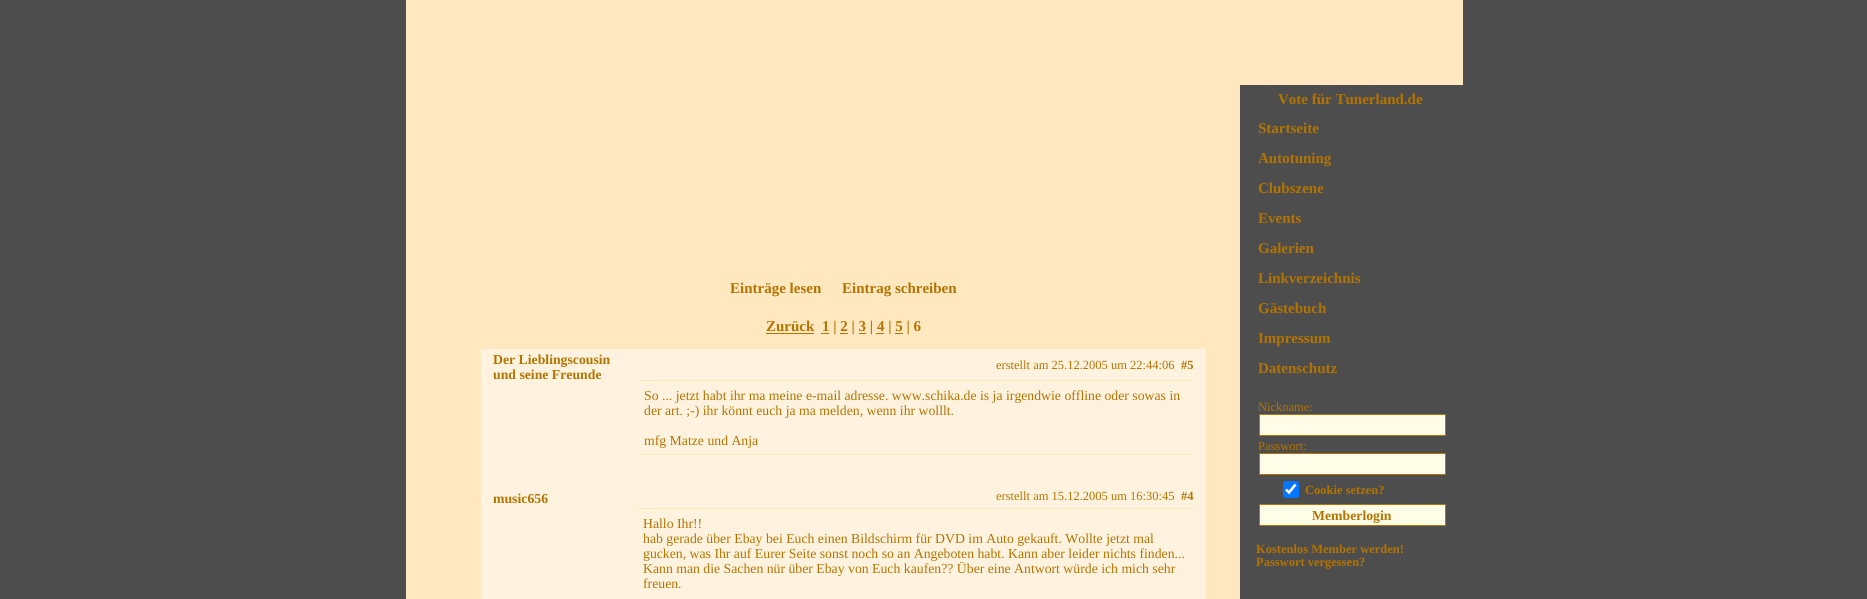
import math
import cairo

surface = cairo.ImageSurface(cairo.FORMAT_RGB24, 1867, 599)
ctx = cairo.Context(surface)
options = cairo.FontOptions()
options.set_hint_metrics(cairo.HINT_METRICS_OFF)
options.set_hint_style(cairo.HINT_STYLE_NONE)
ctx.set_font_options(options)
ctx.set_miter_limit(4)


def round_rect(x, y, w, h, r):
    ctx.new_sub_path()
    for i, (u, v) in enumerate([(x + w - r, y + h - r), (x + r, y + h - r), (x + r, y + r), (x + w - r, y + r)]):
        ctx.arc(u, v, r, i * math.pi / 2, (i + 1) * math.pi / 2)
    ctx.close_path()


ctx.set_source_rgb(0.302, 0.302, 0.302)
ctx.paint()
ctx.set_source_rgb(1, 0.91, 0.753)
ctx.rectangle(406, 0, 1057, 85)
ctx.fill()
ctx.rectangle(406, 85, 834, 514)
ctx.fill()
ctx.select_font_face("Liberation Serif", cairo.FONT_SLANT_NORMAL, cairo.FONT_WEIGHT_BOLD)
ctx.set_font_size(15)
ctx.set_source_rgb(0.702, 0.455, 0)
ctx.move_to(730, 293)
ctx.show_text("Einträge lesen")
ctx.move_to(842, 293)
ctx.show_text("Eintrag schreiben")
ctx.move_to(766, 331)
ctx.show_text("Zurück")
ctx.rectangle(766, 333, 48, 1)
ctx.fill()
ctx.rectangle(821, 333, 8, 1)
ctx.fill()
ctx.move_to(822, 331)
ctx.show_text("1 | 2 | 3 | 4 | 5 | 6")
ctx.rectangle(840, 333, 8, 1)
ctx.fill()
ctx.rectangle(859, 333, 7, 1)
ctx.fill()
ctx.rectangle(876, 333, 8, 1)
ctx.fill()
ctx.rectangle(895, 333, 8, 1)
ctx.fill()
ctx.set_source_rgb(1, 0.953, 0.875)
ctx.rectangle(481, 349, 725, 250)
ctx.fill()
ctx.set_font_size(13.75)
ctx.set_source_rgb(0.702, 0.455, 0)
ctx.move_to(493, 364)
ctx.show_text("Der Lieblingscousin")
ctx.move_to(493, 379)
ctx.show_text("und seine Freunde")
ctx.set_source_rgb(1, 0.91, 0.753)
ctx.rectangle(638, 380, 556, 1)
ctx.fill()
ctx.select_font_face("Liberation Serif")
ctx.set_font_size(12.5)
ctx.set_source_rgb(0.702, 0.455, 0)
ctx.move_to(996, 369)
ctx.show_text("erstellt am 25.12.2005 um 22:44:06")
ctx.select_font_face("Liberation Serif", cairo.FONT_SLANT_NORMAL, cairo.FONT_WEIGHT_BOLD)
ctx.move_to(1181, 369)
ctx.show_text("#5")
ctx.set_source_rgb(1, 0.91, 0.753)
ctx.rectangle(638, 454, 556, 1)
ctx.fill()
ctx.select_font_face("Liberation Serif")
ctx.set_font_size(13.75)
ctx.set_source_rgb(0.702, 0.455, 0)
ctx.move_to(644, 400)
ctx.show_text("So ... jetzt habt ihr ma meine e-mail adresse. www.schika.de is ja irgendwie offline oder sowas in")
ctx.move_to(644, 415)
ctx.show_text("der art. ;-) ihr könnt euch ja ma melden, wenn ihr wolllt.")
ctx.move_to(644, 445)
ctx.show_text("mfg Matze und Anja")
ctx.select_font_face("Liberation Serif", cairo.FONT_SLANT_NORMAL, cairo.FONT_WEIGHT_BOLD)
ctx.move_to(493, 503)
ctx.show_text("music656")
ctx.set_source_rgb(1, 0.91, 0.753)
ctx.rectangle(636, 508, 558, 1)
ctx.fill()
ctx.select_font_face("Liberation Serif")
ctx.set_font_size(12.5)
ctx.set_source_rgb(0.702, 0.455, 0)
ctx.move_to(996, 500)
ctx.show_text("erstellt am 15.12.2005 um 16:30:45")
ctx.select_font_face("Liberation Serif", cairo.FONT_SLANT_NORMAL, cairo.FONT_WEIGHT_BOLD)
ctx.move_to(1181, 500)
ctx.show_text("#4")
ctx.select_font_face("Liberation Serif")
ctx.set_font_size(13.75)
ctx.move_to(643, 528)
ctx.show_text("Hallo Ihr!!")
ctx.move_to(643, 543)
ctx.show_text("hab gerade über Ebay bei Euch einen Bildschirm für DVD im Auto gekauft. Wollte jetzt mal")
ctx.move_to(643, 558)
ctx.show_text("gucken, was Ihr auf Eurer Seite sonst noch so an Angeboten habt. Kann aber leider nichts finden...")
ctx.move_to(643, 573)
ctx.show_text("Kann man die Sachen nür über Ebay von Euch kaufen?? Über eine Antwort würde ich mich sehr")
ctx.move_to(643, 588)
ctx.show_text("freuen.")
ctx.select_font_face("Liberation Serif", cairo.FONT_SLANT_NORMAL, cairo.FONT_WEIGHT_BOLD)
ctx.set_font_size(15)
ctx.move_to(1278, 104)
ctx.show_text("Vote für Tunerland.de")
ctx.move_to(1258, 133)
ctx.show_text("Startseite")
ctx.move_to(1258, 163)
ctx.show_text("Autotuning")
ctx.move_to(1258, 193)
ctx.show_text("Clubszene")
ctx.move_to(1258, 223)
ctx.show_text("Events")
ctx.move_to(1258, 253)
ctx.show_text("Galerien")
ctx.move_to(1258, 283)
ctx.show_text("Linkverzeichnis")
ctx.move_to(1258, 313)
ctx.show_text("Gästebuch")
ctx.move_to(1258, 343)
ctx.show_text("Impressum")
ctx.move_to(1258, 373)
ctx.show_text("Datenschutz")
ctx.select_font_face("Liberation Serif")
ctx.set_font_size(12.5)
ctx.move_to(1258, 411)
ctx.show_text("Nickname:")
ctx.set_source_rgb(1, 0.988, 0.91)
ctx.rectangle(1259.5, 414.5, 186, 21)
ctx.fill_preserve()
ctx.set_source_rgb(0.702, 0.455, 0)
ctx.set_line_width(1)
ctx.stroke()
ctx.move_to(1258, 450)
ctx.show_text("Passwort:")
ctx.set_source_rgb(1, 0.988, 0.91)
ctx.rectangle(1259.5, 453.5, 186, 21)
ctx.fill_preserve()
ctx.set_source_rgb(0.702, 0.455, 0)
ctx.stroke()
ctx.set_source_rgb(0, 0.459, 1)
round_rect(1283, 481, 16, 17, 2.5)
ctx.fill()
ctx.new_path()
ctx.move_to(1286, 489.5)
ctx.line_to(1289, 492.5)
ctx.line_to(1295.5, 484.5)
ctx.set_source_rgb(1, 1, 1)
ctx.set_line_width(2.6)
ctx.stroke()
ctx.select_font_face("Liberation Serif", cairo.FONT_SLANT_NORMAL, cairo.FONT_WEIGHT_BOLD)
ctx.set_source_rgb(0.702, 0.455, 0)
ctx.move_to(1305, 494)
ctx.show_text("Cookie setzen?")
ctx.set_source_rgb(1, 0.988, 0.91)
ctx.rectangle(1259.5, 504.5, 186, 21)
ctx.fill_preserve()
ctx.set_source_rgb(0.702, 0.455, 0)
ctx.set_line_width(1)
ctx.stroke()
ctx.set_font_size(13.75)
ctx.move_to(1312, 520)
ctx.show_text("Memberlogin")
ctx.set_font_size(12.5)
ctx.move_to(1256, 553)
ctx.show_text("Kostenlos Member werden!")
ctx.move_to(1256, 566)
ctx.show_text("Passwort vergessen?")
surface.write_to_png("page.png")
